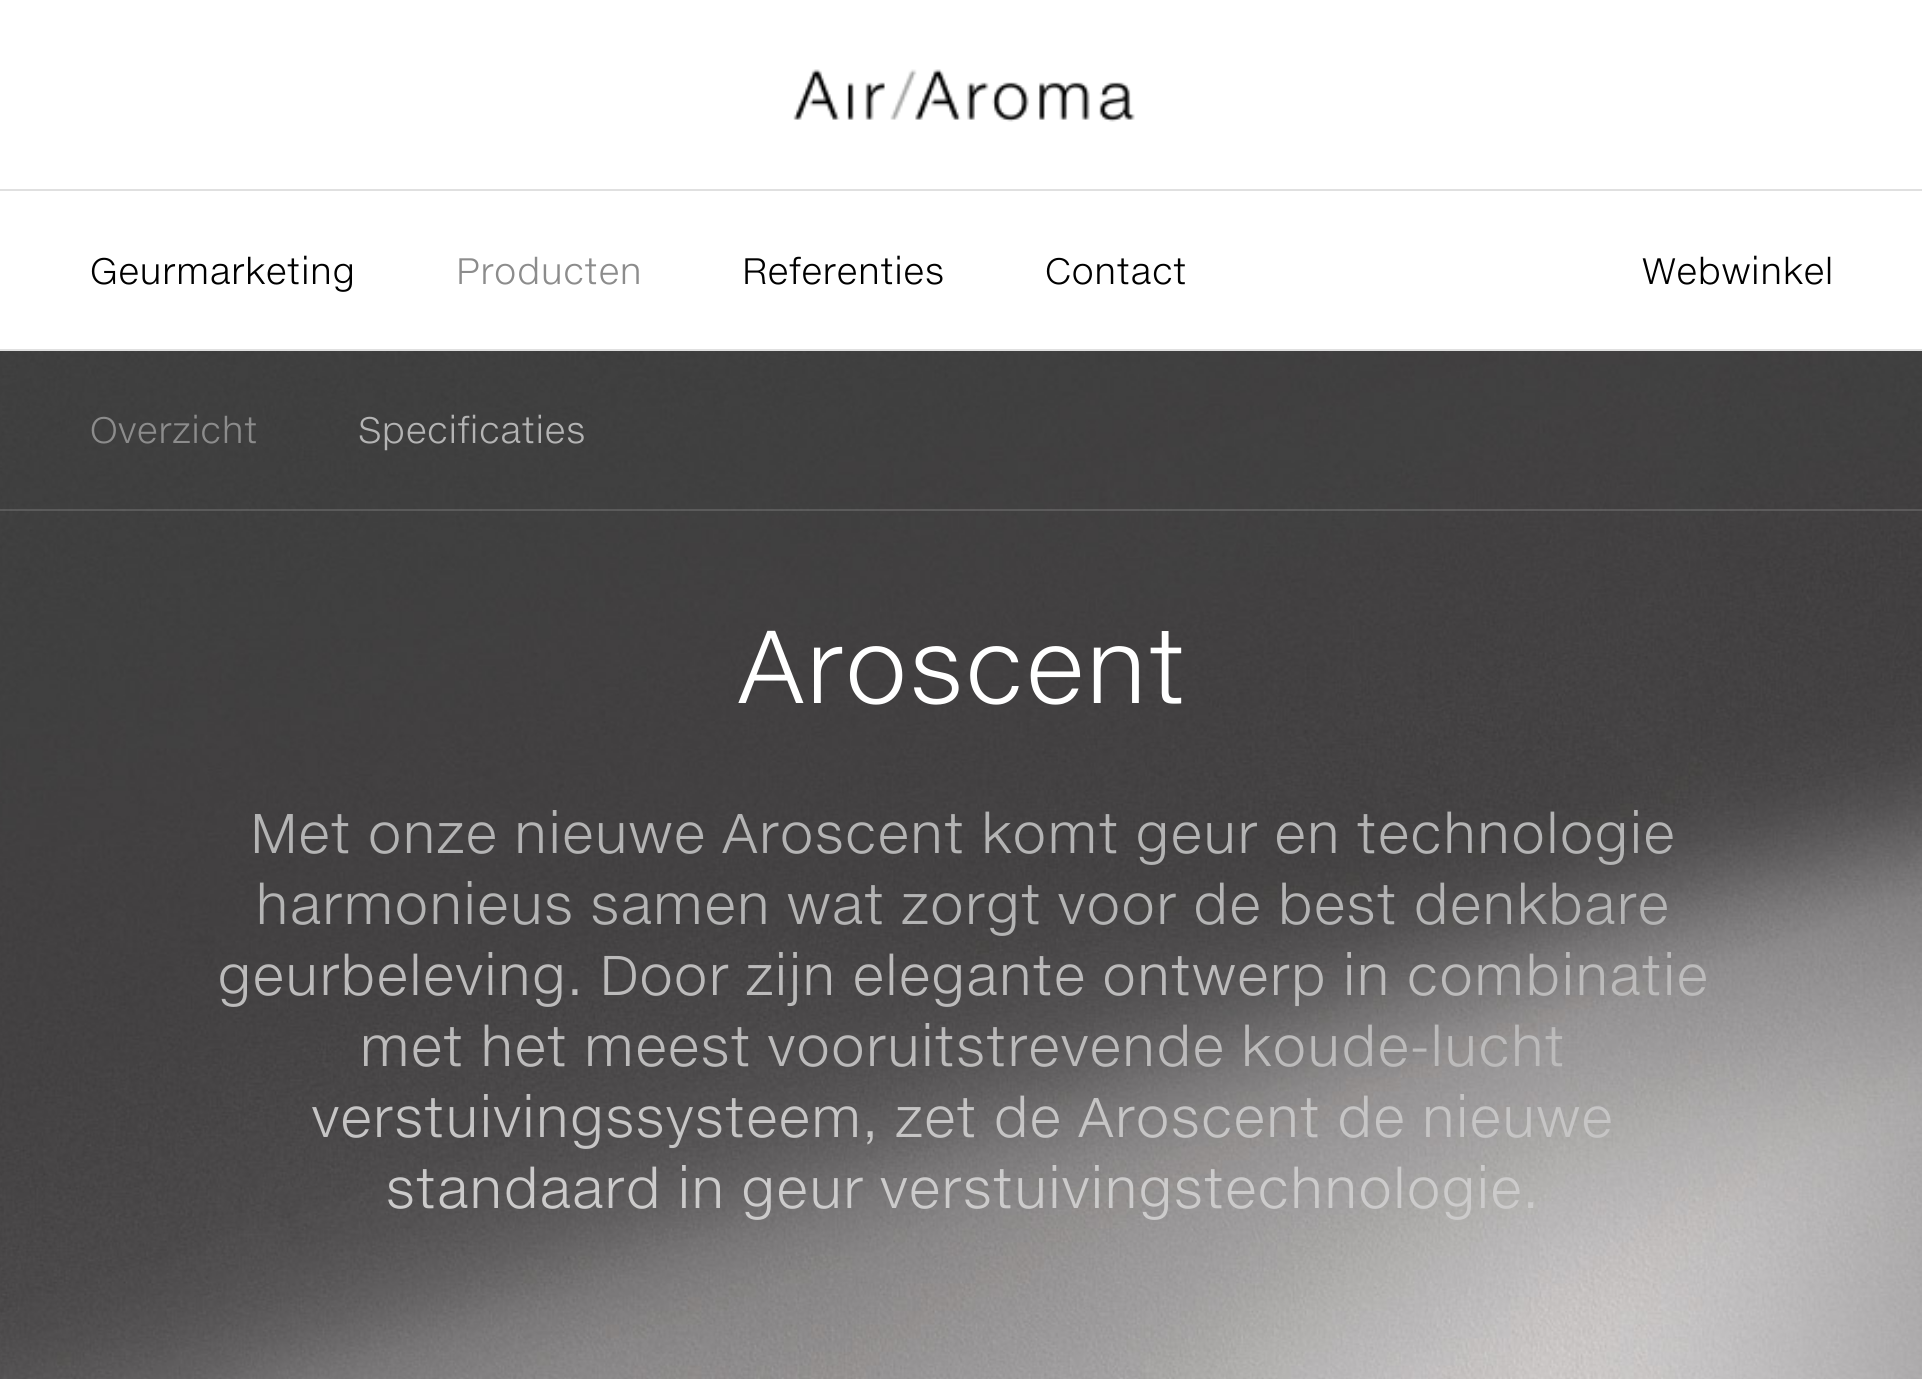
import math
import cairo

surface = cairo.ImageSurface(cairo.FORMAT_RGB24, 1922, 1379)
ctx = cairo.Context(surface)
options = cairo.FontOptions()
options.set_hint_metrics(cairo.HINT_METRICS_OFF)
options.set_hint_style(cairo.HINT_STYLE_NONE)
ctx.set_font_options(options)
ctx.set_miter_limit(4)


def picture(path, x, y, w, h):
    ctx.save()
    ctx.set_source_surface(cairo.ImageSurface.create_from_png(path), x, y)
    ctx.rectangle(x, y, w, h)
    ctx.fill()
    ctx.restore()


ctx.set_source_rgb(1, 1, 1)
ctx.paint()
ctx.set_source_rgb(0.878, 0.878, 0.878)
ctx.rectangle(0, 189, 1922, 2)
ctx.fill()
picture("img1.png", 793, 69, 342, 53)
ctx.rectangle(0, 349, 1922, 2)
ctx.fill()
ctx.select_font_face("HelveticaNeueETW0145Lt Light")
ctx.set_font_size(36)
ctx.set_source_rgb(0, 0, 0)
ctx.move_to(90, 284)
ctx.show_text("Geurmarketing")
ctx.set_source_rgb(0.549, 0.549, 0.549)
ctx.move_to(456, 284)
ctx.show_text("Producten")
ctx.set_source_rgb(0, 0, 0)
ctx.move_to(742, 284)
ctx.show_text("Referenties")
ctx.move_to(1045, 284)
ctx.show_text("Contact")
ctx.move_to(1642, 284)
ctx.show_text("Webwinkel")
picture("img2.png", 0, 351, 1922, 1028)
ctx.set_source_rgba(0.6, 0.6, 0.6, 0.3)
ctx.rectangle(0, 509, 1922, 2)
ctx.fill()
ctx.set_source_rgb(0.549, 0.549, 0.549)
ctx.move_to(90, 443)
ctx.show_text("Overzicht")
ctx.set_source_rgb(0.706, 0.706, 0.706)
ctx.move_to(358, 443)
ctx.show_text("Specificaties")
ctx.set_font_size(101.25)
ctx.set_source_rgb(1, 1, 1)
ctx.move_to(737, 703)
ctx.show_text("Aroscent")
ctx.set_font_size(54.7)
ctx.set_source_rgb(0.706, 0.706, 0.706)
ctx.move_to(250, 853)
ctx.show_text("Met onze nieuwe Aroscent komt geur en technologie")
ctx.move_to(255, 924)
ctx.show_text("harmonieus samen wat zorgt voor de best denkbare")
ctx.set_source_rgb(0.737, 0.733, 0.733)
ctx.move_to(217, 995)
ctx.show_text("geurbeleving. Door zijn elegante ontwerp in combinatie")
ctx.move_to(359, 1066)
ctx.show_text("met het meest vooruitstrevende koude-lucht")
ctx.set_source_rgb(0.776, 0.773, 0.773)
ctx.move_to(311, 1137)
ctx.show_text("verstuivingssysteem, zet de Aroscent de nieuwe")
ctx.set_source_rgb(0.8, 0.796, 0.796)
ctx.move_to(385, 1208)
ctx.show_text("standaard in geur verstuivingstechnologie.")
surface.write_to_png("page.png")
